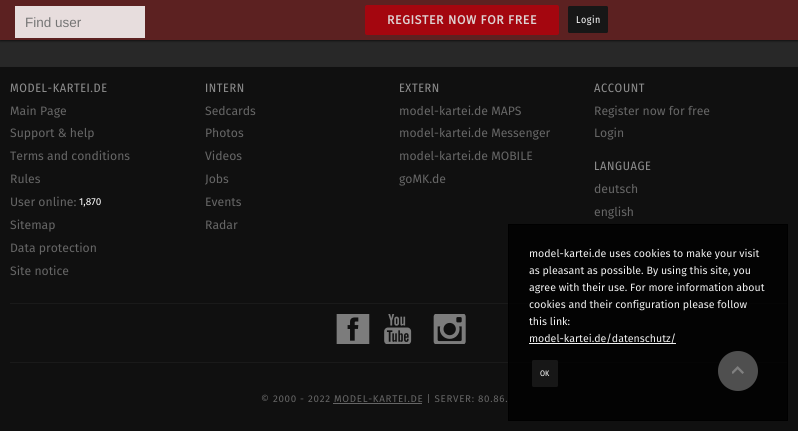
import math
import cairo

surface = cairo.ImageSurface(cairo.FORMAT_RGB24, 798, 431)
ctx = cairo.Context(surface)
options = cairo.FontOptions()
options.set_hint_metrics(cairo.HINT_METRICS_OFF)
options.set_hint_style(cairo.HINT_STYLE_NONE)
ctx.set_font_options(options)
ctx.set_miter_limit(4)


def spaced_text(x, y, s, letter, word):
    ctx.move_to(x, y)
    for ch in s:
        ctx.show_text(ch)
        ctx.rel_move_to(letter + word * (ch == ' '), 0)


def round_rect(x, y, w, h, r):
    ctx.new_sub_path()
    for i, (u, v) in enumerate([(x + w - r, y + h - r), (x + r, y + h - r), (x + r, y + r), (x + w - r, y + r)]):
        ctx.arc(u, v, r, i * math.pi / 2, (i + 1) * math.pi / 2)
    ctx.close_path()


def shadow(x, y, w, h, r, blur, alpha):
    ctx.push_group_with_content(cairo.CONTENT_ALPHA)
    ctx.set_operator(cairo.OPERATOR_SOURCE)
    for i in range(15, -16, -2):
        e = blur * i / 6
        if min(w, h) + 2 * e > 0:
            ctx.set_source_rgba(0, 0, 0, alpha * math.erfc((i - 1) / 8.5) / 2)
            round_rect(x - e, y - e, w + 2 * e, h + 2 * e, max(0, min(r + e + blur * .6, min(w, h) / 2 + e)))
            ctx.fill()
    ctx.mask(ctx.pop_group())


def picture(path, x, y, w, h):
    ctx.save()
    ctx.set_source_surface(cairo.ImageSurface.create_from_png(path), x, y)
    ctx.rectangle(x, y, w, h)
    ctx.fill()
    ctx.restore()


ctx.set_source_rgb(0.063, 0.063, 0.063)
ctx.paint()
ctx.set_source_rgb(0.157, 0.157, 0.157)
ctx.rectangle(0, 40, 798, 26)
ctx.fill()
ctx.set_source_rgb(0.063, 0.063, 0.063)
shadow(0, 1, 798, 40, 0, 1, 1)
ctx.set_source_rgb(0.361, 0.129, 0.129)
ctx.rectangle(0, 0, 798, 40)
ctx.fill()
ctx.set_source_rgb(0.906, 0.867, 0.867)
ctx.rectangle(15, 6, 130, 32)
ctx.fill()
ctx.select_font_face("Liberation Sans")
ctx.set_font_size(13.5)
ctx.set_source_rgb(0.459, 0.459, 0.459)
ctx.move_to(25, 27)
ctx.show_text("Find user")
ctx.set_source_rgb(0.643, 0.027, 0.059)
round_rect(365, 5, 194, 30, 2)
ctx.fill()
ctx.select_font_face("Fira Sans", cairo.FONT_SLANT_NORMAL, cairo.FONT_WEIGHT_BOLD)
ctx.set_font_size(12.25)
ctx.set_source_rgb(0.871, 0.827, 0.827)
spaced_text(387, 24, "REGISTER NOW FOR FREE", 0.6, 0)
ctx.set_source_rgb(0.09, 0.09, 0.09)
round_rect(568, 6, 40, 27, 1.5)
ctx.fill()
ctx.select_font_face("Fira Sans Condensed")
ctx.set_font_size(10)
ctx.set_source_rgb(1, 1, 1)
spaced_text(576, 23, "Login", 0.5, 0)
ctx.set_source_rgb(0.153, 0.153, 0.153)
ctx.rectangle(0, 66, 798, 1)
ctx.fill()
ctx.set_font_size(12.2)
ctx.set_source_rgb(0.557, 0.557, 0.557)
spaced_text(10, 92, "MODEL-KARTEI.DE", 0.6, 0)
ctx.select_font_face("Fira Sans")
ctx.set_source_rgb(0.4, 0.4, 0.4)
ctx.move_to(10, 115)
ctx.show_text("Main Page")
ctx.move_to(10, 137)
ctx.show_text("Support & help")
ctx.move_to(10, 160)
ctx.show_text("Terms and conditions")
ctx.move_to(10, 183)
ctx.show_text("Rules")
ctx.move_to(10, 206)
ctx.show_text("User online:")
ctx.set_font_size(10)
ctx.set_source_rgb(1, 1, 1)
ctx.move_to(79, 205)
ctx.show_text("1,870")
ctx.set_font_size(12.2)
ctx.set_source_rgb(0.4, 0.4, 0.4)
ctx.move_to(10, 229)
ctx.show_text("Sitemap")
ctx.move_to(10, 252)
ctx.show_text("Data protection")
ctx.move_to(10, 275)
ctx.show_text("Site notice")
ctx.select_font_face("Fira Sans Condensed")
ctx.set_source_rgb(0.557, 0.557, 0.557)
spaced_text(205, 92, "INTERN", 0.6, 0)
ctx.select_font_face("Fira Sans")
ctx.set_source_rgb(0.4, 0.4, 0.4)
ctx.move_to(205, 115)
ctx.show_text("Sedcards")
ctx.move_to(205, 137)
ctx.show_text("Photos")
ctx.move_to(205, 160)
ctx.show_text("Videos")
ctx.move_to(205, 183)
ctx.show_text("Jobs")
ctx.move_to(205, 206)
ctx.show_text("Events")
ctx.move_to(205, 229)
ctx.show_text("Radar")
ctx.select_font_face("Fira Sans Condensed")
ctx.set_source_rgb(0.557, 0.557, 0.557)
spaced_text(399, 92, "EXTERN", 0.6, 0)
ctx.select_font_face("Fira Sans")
ctx.set_source_rgb(0.4, 0.4, 0.4)
ctx.move_to(399, 115)
ctx.show_text("model-kartei.de MAPS")
ctx.move_to(399, 137)
ctx.show_text("model-kartei.de Messenger")
ctx.move_to(399, 160)
ctx.show_text("model-kartei.de MOBILE")
ctx.move_to(399, 183)
ctx.show_text("goMK.de")
ctx.select_font_face("Fira Sans Condensed")
ctx.set_source_rgb(0.557, 0.557, 0.557)
spaced_text(594, 92, "ACCOUNT", 0.6, 0)
ctx.select_font_face("Fira Sans")
ctx.set_source_rgb(0.4, 0.4, 0.4)
ctx.move_to(594, 115)
ctx.show_text("Register now for free")
ctx.move_to(594, 137)
ctx.show_text("Login")
ctx.select_font_face("Fira Sans Condensed")
ctx.set_source_rgb(0.557, 0.557, 0.557)
spaced_text(594, 170, "LANGUAGE", 0.6, 0)
ctx.select_font_face("Fira Sans")
ctx.set_source_rgb(0.4, 0.4, 0.4)
ctx.move_to(594, 193)
ctx.show_text("deutsch")
ctx.move_to(594, 216)
ctx.show_text("english")
ctx.set_source_rgb(0.102, 0.102, 0.102)
ctx.rectangle(10, 303, 778, 1)
ctx.fill()
ctx.rectangle(10, 362, 778, 1)
ctx.fill()
picture("img1.png", 336, 314, 34, 30)
picture("img2.png", 384, 314, 28, 30)
picture("img3.png", 433, 314, 33, 30)
ctx.set_font_size(9.75)
ctx.set_source_rgb(0.4, 0.4, 0.4)
spaced_text(261, 402, "© 2000 - 2022 MODEL-KARTEI.DE | SERVER: 80.86.", 0.7, 0)
ctx.rectangle(333, 403, 89, 1)
ctx.fill()
ctx.set_source_rgba(0, 0, 0, 0.8)
ctx.rectangle(508.5, 224.5, 279, 196)
ctx.fill_preserve()
ctx.set_source_rgb(0, 0, 0)
ctx.set_line_width(1)
ctx.stroke()
ctx.set_font_size(10.6)
ctx.set_source_rgb(0.945, 0.945, 0.945)
ctx.move_to(529, 257)
ctx.show_text("model-kartei.de uses cookies to make your visit")
ctx.move_to(529, 274)
ctx.show_text("as pleasant as possible. By using this site, you")
ctx.move_to(529, 291)
ctx.show_text("agree with their use. For more information about")
ctx.move_to(529, 308)
ctx.show_text("cookies and their configuration please follow")
ctx.move_to(529, 325)
ctx.show_text("this link:")
ctx.rectangle(529, 343, 147, 1)
ctx.fill()
ctx.move_to(529, 342)
ctx.show_text("model-kartei.de/datenschutz/")
ctx.set_source_rgb(0.09, 0.09, 0.09)
round_rect(532, 360, 26, 27, 1.5)
ctx.fill()
ctx.select_font_face("Fira Sans Condensed")
ctx.set_font_size(8)
ctx.set_source_rgb(1, 1, 1)
ctx.move_to(540, 376)
ctx.show_text("OK")
ctx.set_source_rgb(0.31, 0.31, 0.31)
ctx.new_path()
ctx.arc(738, 371, 20, 0, 2 * math.pi)
ctx.fill()
picture("img4.png", 732, 366, 12, 8)
surface.write_to_png("page.png")
